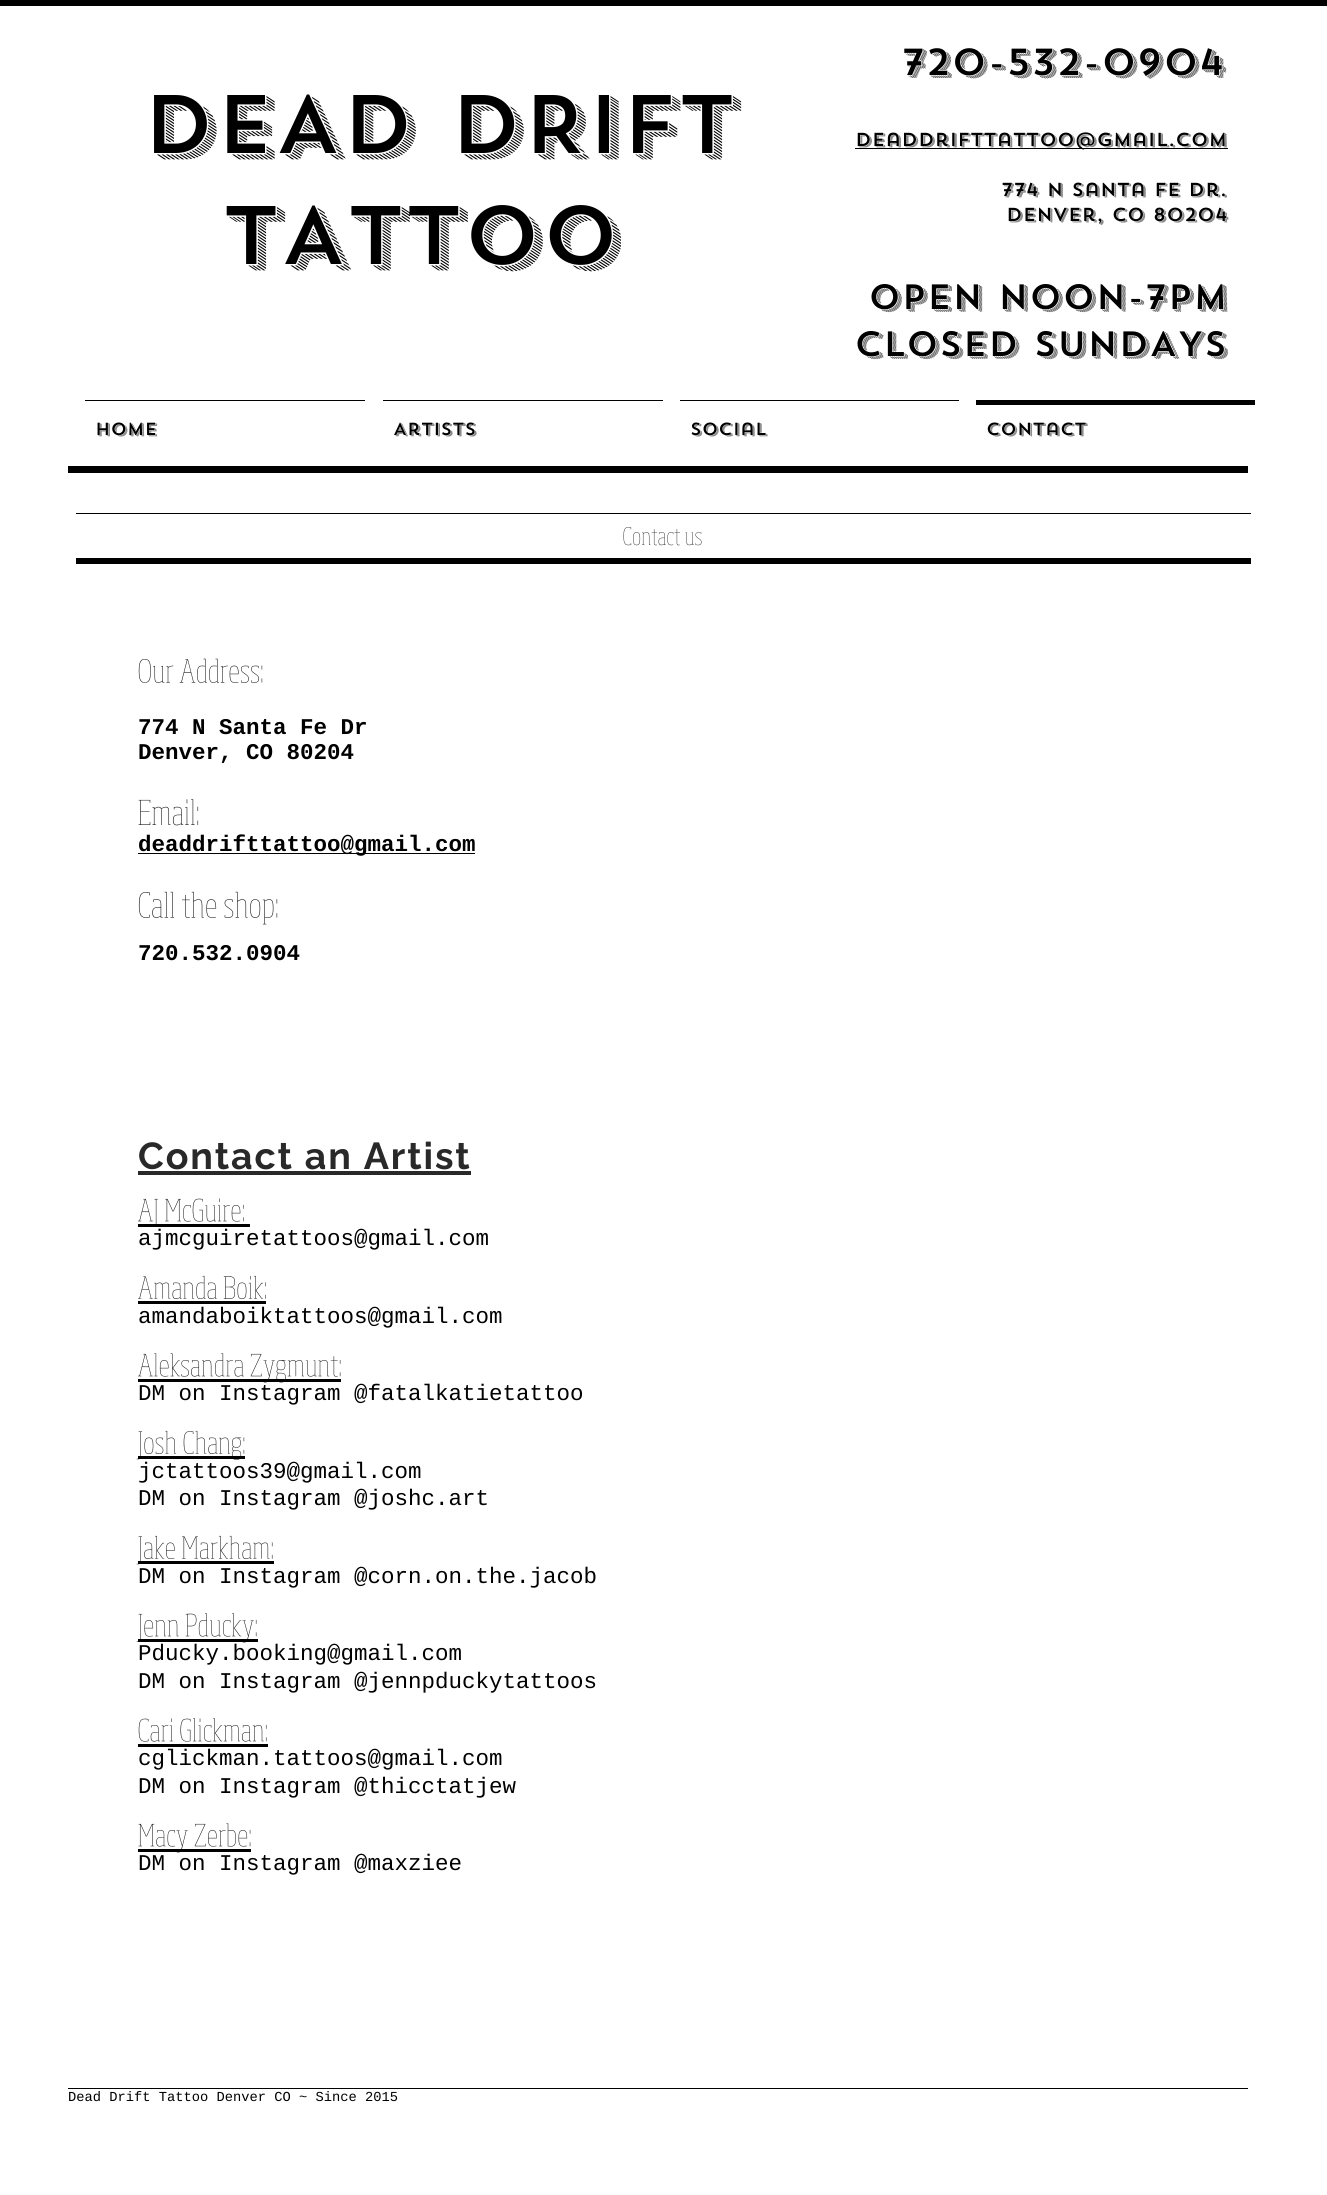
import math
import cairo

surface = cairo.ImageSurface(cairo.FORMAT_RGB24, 1327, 2195)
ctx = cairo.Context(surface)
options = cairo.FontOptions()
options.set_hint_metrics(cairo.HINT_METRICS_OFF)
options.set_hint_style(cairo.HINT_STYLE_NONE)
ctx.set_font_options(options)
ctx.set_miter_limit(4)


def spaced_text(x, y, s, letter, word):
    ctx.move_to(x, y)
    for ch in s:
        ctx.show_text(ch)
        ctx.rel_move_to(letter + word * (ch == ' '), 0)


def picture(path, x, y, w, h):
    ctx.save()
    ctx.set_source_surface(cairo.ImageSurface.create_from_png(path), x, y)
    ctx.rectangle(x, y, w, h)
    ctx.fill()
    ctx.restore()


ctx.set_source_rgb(1, 1, 1)
ctx.paint()
ctx.set_source_rgb(0, 0, 0)
ctx.rectangle(0, 0, 1327, 6)
ctx.fill()
ctx.select_font_face("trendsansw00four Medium")
ctx.set_font_size(37.5)
ctx.move_to(901, 75)
ctx.show_text("720-532-0904")
ctx.set_font_size(82.5)
ctx.move_to(142, 153)
ctx.show_text("DEAD DRIFT")
ctx.move_to(222, 264)
ctx.show_text("TATTOO")
ctx.rectangle(855, 148, 373, 1)
ctx.fill()
ctx.set_font_size(18.75)
ctx.move_to(855, 146)
ctx.show_text("deaddrifttattoo@gmail.com")
ctx.move_to(1001, 196)
ctx.show_text("774 N Santa Fe Dr.")
ctx.move_to(1006, 221)
ctx.show_text("Denver, CO 80204")
ctx.set_font_size(35)
ctx.move_to(868, 309)
ctx.show_text("Open Noon-7pm")
ctx.move_to(854, 356)
ctx.show_text("Closed SUNDAYS")
ctx.rectangle(85, 400, 280, 1)
ctx.fill()
ctx.set_font_size(17.5)
ctx.move_to(95, 435)
ctx.show_text("Home")
ctx.rectangle(383, 400, 280, 1)
ctx.fill()
ctx.move_to(393, 435)
ctx.show_text("Artists")
ctx.rectangle(680, 400, 279, 1)
ctx.fill()
ctx.move_to(690, 435)
ctx.show_text("Social")
ctx.rectangle(976, 400, 279, 5)
ctx.fill()
ctx.move_to(986, 435)
ctx.show_text("Contact")
ctx.rectangle(68, 466, 1180, 7)
ctx.fill()
ctx.rectangle(76, 513, 1175, 1)
ctx.fill()
picture("img1.png", 623, 527, 79, 19)
ctx.rectangle(76, 558, 1175, 6)
ctx.fill()
picture("img2.png", 138, 658, 125, 25)
ctx.select_font_face("Liberation Mono", cairo.FONT_SLANT_NORMAL, cairo.FONT_WEIGHT_BOLD)
ctx.set_font_size(22.5)
ctx.move_to(138, 734)
ctx.show_text("774 N Santa Fe Dr")
ctx.move_to(138, 759)
ctx.show_text("Denver, CO 80204")
picture("img3.png", 138, 799, 61, 27)
ctx.rectangle(138, 853, 337, 1)
ctx.fill()
ctx.move_to(138, 851)
ctx.show_text("deaddrifttattoo@gmail.com")
picture("img4.png", 138, 891, 140, 34)
ctx.move_to(138, 960)
ctx.show_text("720.532.0904")
ctx.select_font_face("Raleway", cairo.FONT_SLANT_NORMAL, cairo.FONT_WEIGHT_BOLD)
ctx.set_font_size(37.5)
ctx.set_source_rgb(0.161, 0.161, 0.161)
spaced_text(138, 1169, "Contact an Artist", 1.9, 0)
ctx.rectangle(138, 1171, 333, 4)
ctx.fill()
picture("img5.png", 138, 1198, 106, 26)
ctx.set_source_rgb(0, 0, 0)
ctx.rectangle(138, 1224, 112, 3)
ctx.fill()
ctx.select_font_face("Liberation Mono")
ctx.set_font_size(22.5)
ctx.move_to(138, 1245)
ctx.show_text("ajmcguiretattoos@gmail.com")
picture("img6.png", 138, 1275, 128, 24)
ctx.rectangle(138, 1301, 128, 3)
ctx.fill()
ctx.move_to(138, 1323)
ctx.show_text("amandaboiktattoos@gmail.com")
picture("img7.png", 138, 1353, 75, 24)
ctx.rectangle(138, 1379, 203, 3)
ctx.fill()
picture("img8.png", 215, 1353, 126, 30)
ctx.move_to(138, 1400)
ctx.show_text("DM on Instagram @fatalkatietattoo")
ctx.rectangle(138, 1456, 107, 3)
ctx.fill()
picture("img9.png", 136, 1430, 109, 30)
ctx.move_to(138, 1478)
ctx.show_text("jctattoos39@gmail.com")
ctx.move_to(138, 1505)
ctx.show_text("DM on Instagram @joshc.art")
ctx.rectangle(138, 1561, 136, 3)
ctx.fill()
picture("img10.png", 136, 1535, 137, 30)
ctx.move_to(138, 1583)
ctx.show_text("DM on Instagram @corn.on.the.jacob")
ctx.rectangle(138, 1639, 120, 3)
ctx.fill()
picture("img11.png", 136, 1613, 121, 30)
ctx.move_to(138, 1660)
ctx.show_text("Pducky.booking@gmail.com")
ctx.move_to(138, 1688)
ctx.show_text("DM on Instagram @jennpduckytattoos")
picture("img12.png", 138, 1718, 129, 24)
ctx.rectangle(138, 1744, 130, 3)
ctx.fill()
ctx.move_to(138, 1765)
ctx.show_text("cglickman.tattoos@gmail.com")
ctx.move_to(138, 1793)
ctx.show_text("DM on Instagram @thicctatjew")
ctx.rectangle(138, 1849, 113, 3)
ctx.fill()
picture("img13.png", 138, 1823, 113, 30)
ctx.move_to(138, 1870)
ctx.show_text("DM on Instagram @maxziee")
ctx.rectangle(68, 2088, 1180, 1)
ctx.fill()
ctx.set_font_size(13.75)
ctx.move_to(68, 2101)
ctx.show_text("Dead Drift Tattoo Denver CO ~ Since 2015")
surface.write_to_png("page.png")
